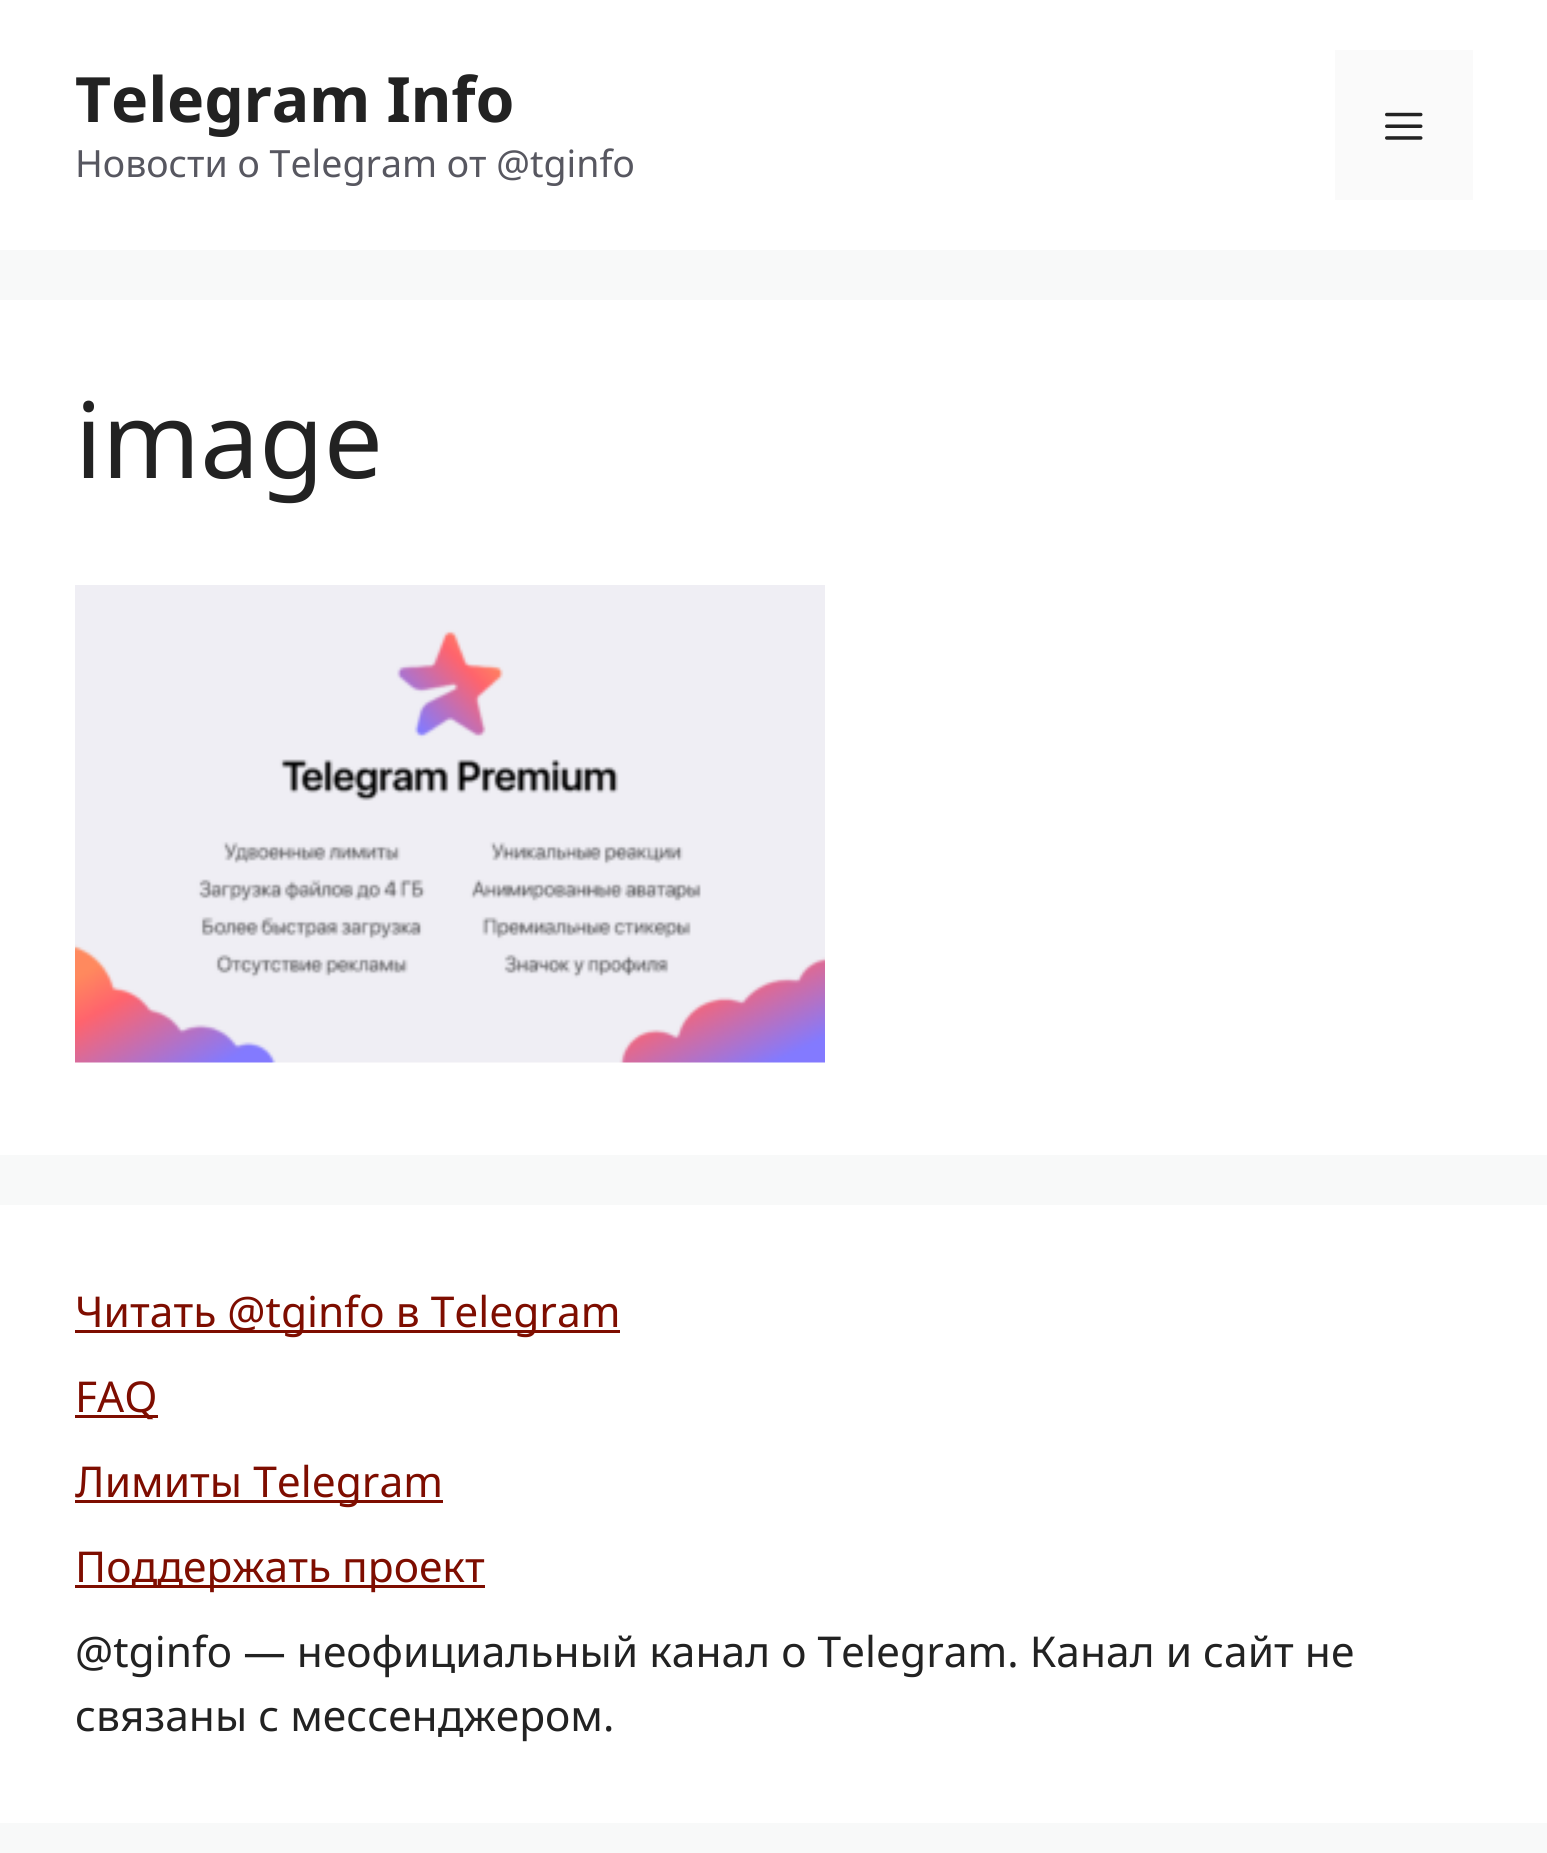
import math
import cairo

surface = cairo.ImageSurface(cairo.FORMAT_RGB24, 1547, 1853)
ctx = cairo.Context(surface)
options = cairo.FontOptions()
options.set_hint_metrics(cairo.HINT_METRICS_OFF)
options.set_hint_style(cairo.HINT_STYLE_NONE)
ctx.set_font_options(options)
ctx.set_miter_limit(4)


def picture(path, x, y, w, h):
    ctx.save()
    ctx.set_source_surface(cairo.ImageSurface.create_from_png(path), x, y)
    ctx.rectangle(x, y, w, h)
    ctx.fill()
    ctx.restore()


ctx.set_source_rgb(0.969, 0.973, 0.976)
ctx.paint()
ctx.set_source_rgb(1, 1, 1)
ctx.rectangle(0, 0, 1547, 250)
ctx.fill()
ctx.select_font_face("Noto Sans", cairo.FONT_SLANT_NORMAL, cairo.FONT_WEIGHT_BOLD)
ctx.set_font_size(62.5)
ctx.set_source_rgb(0.133, 0.133, 0.133)
ctx.move_to(75, 122)
ctx.show_text("Telegram Info")
ctx.select_font_face("Noto Sans")
ctx.set_font_size(37.5)
ctx.set_source_rgb(0.341, 0.341, 0.376)
ctx.move_to(75, 177)
ctx.show_text("Новости о Telegram от @tginfo")
ctx.set_source_rgb(0.98, 0.98, 0.98)
ctx.rectangle(1335, 50, 138, 150)
ctx.fill()
picture("img1.png", 1385, 112, 38, 28)
ctx.set_source_rgb(1, 1, 1)
ctx.rectangle(0, 300, 1547, 855)
ctx.fill()
ctx.set_font_size(105)
ctx.set_source_rgb(0.133, 0.133, 0.133)
ctx.move_to(75, 478)
ctx.show_text("image")
picture("img2.png", 75, 585, 750, 478)
ctx.set_source_rgb(1, 1, 1)
ctx.rectangle(0, 1205, 1547, 618)
ctx.fill()
ctx.set_source_rgb(0.494, 0.051, 0)
ctx.rectangle(75, 1330, 545, 3)
ctx.fill()
ctx.set_font_size(42.5)
ctx.move_to(75, 1327)
ctx.show_text("Читать @tginfo в Telegram")
ctx.rectangle(75, 1415, 83, 3)
ctx.fill()
ctx.move_to(75, 1412)
ctx.show_text("FAQ")
ctx.rectangle(75, 1500, 368, 3)
ctx.fill()
ctx.move_to(75, 1497)
ctx.show_text("Лимиты Telegram")
ctx.rectangle(75, 1585, 410, 3)
ctx.fill()
ctx.move_to(75, 1582)
ctx.show_text("Поддержать проект")
ctx.set_source_rgb(0.133, 0.133, 0.133)
ctx.move_to(75, 1667)
ctx.show_text("@tginfo — неофициальный канал о Telegram. Канал и сайт не")
ctx.move_to(75, 1731)
ctx.show_text("связаны с мессенджером.")
surface.write_to_png("page.png")
